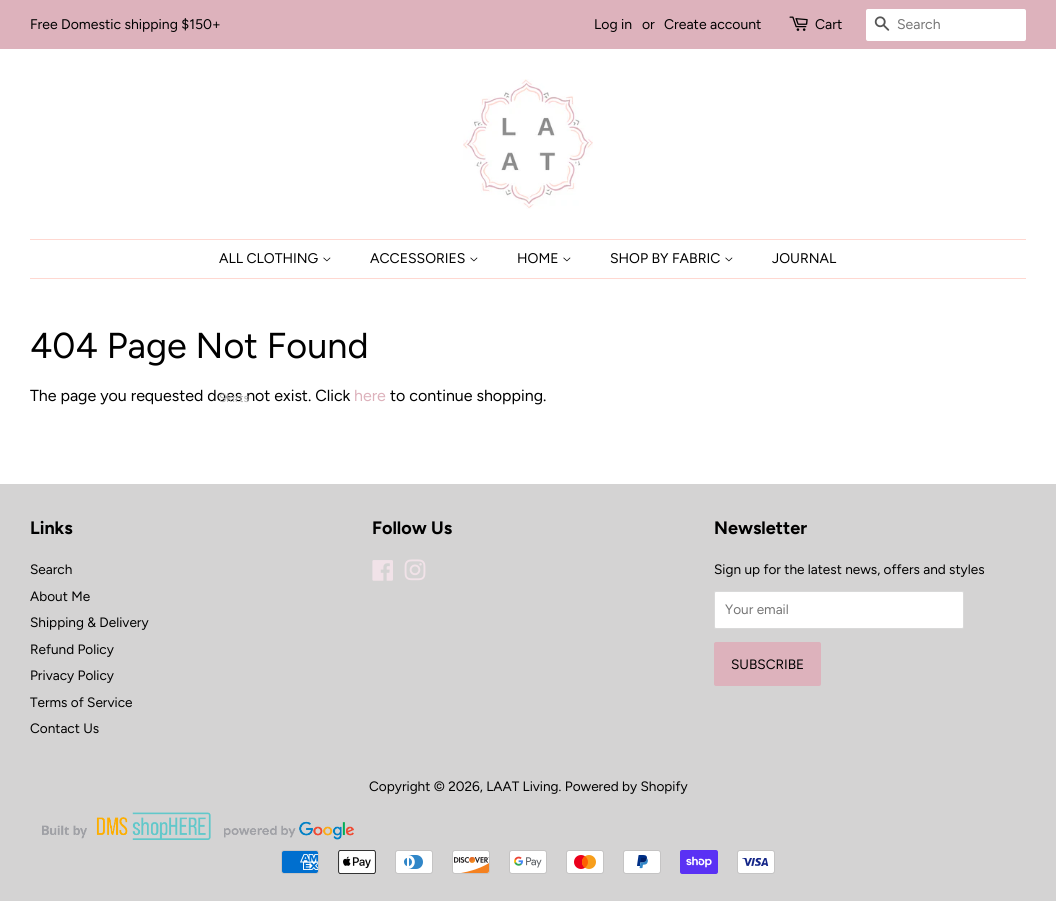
import math
import cairo

surface = cairo.ImageSurface(cairo.FORMAT_RGB24, 1056, 901)
ctx = cairo.Context(surface)
options = cairo.FontOptions()
options.set_hint_metrics(cairo.HINT_METRICS_OFF)
options.set_hint_style(cairo.HINT_STYLE_NONE)
ctx.set_font_options(options)
ctx.set_miter_limit(4)


def round_rect(x, y, w, h, r):
    ctx.new_sub_path()
    for i, (u, v) in enumerate([(x + w - r, y + h - r), (x + r, y + h - r), (x + r, y + r), (x + w - r, y + r)]):
        ctx.arc(u, v, r, i * math.pi / 2, (i + 1) * math.pi / 2)
    ctx.close_path()


def picture(path, x, y, w, h):
    ctx.save()
    ctx.set_source_surface(cairo.ImageSurface.create_from_png(path), x, y)
    ctx.rectangle(x, y, w, h)
    ctx.fill()
    ctx.restore()


ctx.set_source_rgb(1, 1, 1)
ctx.paint()
ctx.set_source_rgb(0.867, 0.698, 0.737)
ctx.rectangle(0, 0, 1056, 49)
ctx.fill()
ctx.select_font_face("Figtree")
ctx.set_font_size(14)
ctx.set_source_rgb(0, 0, 0)
ctx.move_to(30, 29)
ctx.show_text("Free Domestic shipping $150+")
ctx.move_to(594, 29)
ctx.show_text("Log in")
ctx.move_to(642, 29)
ctx.show_text("or")
ctx.move_to(664, 29)
ctx.show_text("Create account")
picture("img1.png", 789, 16, 19, 15)
ctx.move_to(815, 29)
ctx.show_text("Cart")
ctx.set_source_rgb(1, 1, 1)
round_rect(866, 9, 160, 32, 2)
ctx.fill()
picture("img2.png", 874, 16, 16, 15)
ctx.set_source_rgb(0.459, 0.459, 0.459)
ctx.move_to(897, 29)
ctx.show_text("Search")
picture("img3.png", 463, 79, 130, 130)
ctx.set_source_rgb(1, 0.847, 0.82)
ctx.rectangle(30, 239, 996, 1)
ctx.fill()
ctx.rectangle(30, 278, 996, 1)
ctx.fill()
ctx.set_source_rgb(0, 0, 0)
ctx.move_to(219, 263)
ctx.show_text("ALL CLOTHING")
picture("img4.png", 323, 257, 8, 5)
ctx.set_font_size(16)
ctx.move_to(30, 401)
ctx.show_text("The page you requested does not exist. Click")
ctx.set_font_size(12)
ctx.set_source_rgb(0.706, 0.706, 0.706)
ctx.move_to(219, 402)
ctx.show_text("Skirts")
ctx.set_font_size(14)
ctx.set_source_rgb(0, 0, 0)
ctx.move_to(370, 263)
ctx.show_text("ACCESSORIES")
picture("img4.png", 470, 257, 8, 5)
ctx.move_to(517, 263)
ctx.show_text("HOME")
picture("img4.png", 563, 257, 8, 5)
ctx.move_to(610, 263)
ctx.show_text("SHOP BY FABRIC")
picture("img4.png", 725, 257, 8, 5)
ctx.move_to(772, 263)
ctx.show_text("JOURNAL")
ctx.set_font_size(36)
ctx.move_to(30, 358)
ctx.show_text("404 Page Not Found")
ctx.set_font_size(16)
ctx.set_source_rgb(0.867, 0.698, 0.737)
ctx.move_to(354, 401)
ctx.show_text("here")
ctx.set_source_rgb(0, 0, 0)
ctx.move_to(390, 401)
ctx.show_text("to continue shopping.")
ctx.set_source_rgb(0.831, 0.827, 0.827)
ctx.rectangle(0, 484, 1056, 417)
ctx.fill()
ctx.select_font_face("Figtree", cairo.FONT_SLANT_NORMAL, cairo.FONT_WEIGHT_BOLD)
ctx.set_font_size(18)
ctx.set_source_rgb(0, 0, 0)
ctx.move_to(30, 534)
ctx.show_text("Links")
ctx.select_font_face("Figtree")
ctx.set_font_size(13.6)
ctx.move_to(30, 574)
ctx.show_text("Search")
ctx.move_to(30, 601)
ctx.show_text("About Me")
ctx.move_to(30, 627)
ctx.show_text("Shipping & Delivery")
ctx.move_to(30, 654)
ctx.show_text("Refund Policy")
ctx.move_to(30, 680)
ctx.show_text("Privacy Policy")
ctx.move_to(30, 707)
ctx.show_text("Terms of Service")
ctx.move_to(30, 733)
ctx.show_text("Contact Us")
ctx.select_font_face("Figtree", cairo.FONT_SLANT_NORMAL, cairo.FONT_WEIGHT_BOLD)
ctx.set_font_size(18)
ctx.move_to(372, 534)
ctx.show_text("Follow Us")
picture("img5.png", 372, 560, 21, 21)
picture("img6.png", 404, 559, 22, 22)
ctx.move_to(714, 534)
ctx.show_text("Newsletter")
ctx.select_font_face("Figtree")
ctx.set_font_size(13.6)
ctx.move_to(714, 574)
ctx.show_text("Sign up for the latest news, offers and styles")
ctx.set_source_rgb(1, 1, 1)
round_rect(714, 591, 250, 38, 2)
ctx.fill()
round_rect(714.5, 591.5, 249, 37, 1.5)
ctx.set_source_rgba(0, 0, 0, 0.15)
ctx.set_line_width(1)
ctx.stroke()
ctx.set_source_rgb(0.459, 0.459, 0.459)
ctx.move_to(725, 614)
ctx.show_text("Your email")
ctx.set_source_rgb(0.867, 0.698, 0.737)
round_rect(714, 642, 107, 44, 2)
ctx.fill()
ctx.set_source_rgb(0, 0, 0)
ctx.move_to(731, 669)
ctx.show_text("SUBSCRIBE")
ctx.move_to(369, 791)
ctx.show_text("Copyright © 2026, LAAT Living. Powered by Shopify")
picture("img7.png", 42, 812, 312, 28)
picture("img8.png", 281, 850, 38, 24)
picture("img9.png", 338, 850, 38, 24)
picture("img10.png", 395, 850, 38, 24)
picture("img11.png", 452, 850, 38, 24)
picture("img12.png", 509, 850, 38, 24)
picture("img13.png", 566, 850, 38, 24)
picture("img14.png", 623, 850, 38, 24)
picture("img15.png", 680, 850, 38, 24)
picture("img16.png", 737, 850, 38, 24)
surface.write_to_png("page.png")
